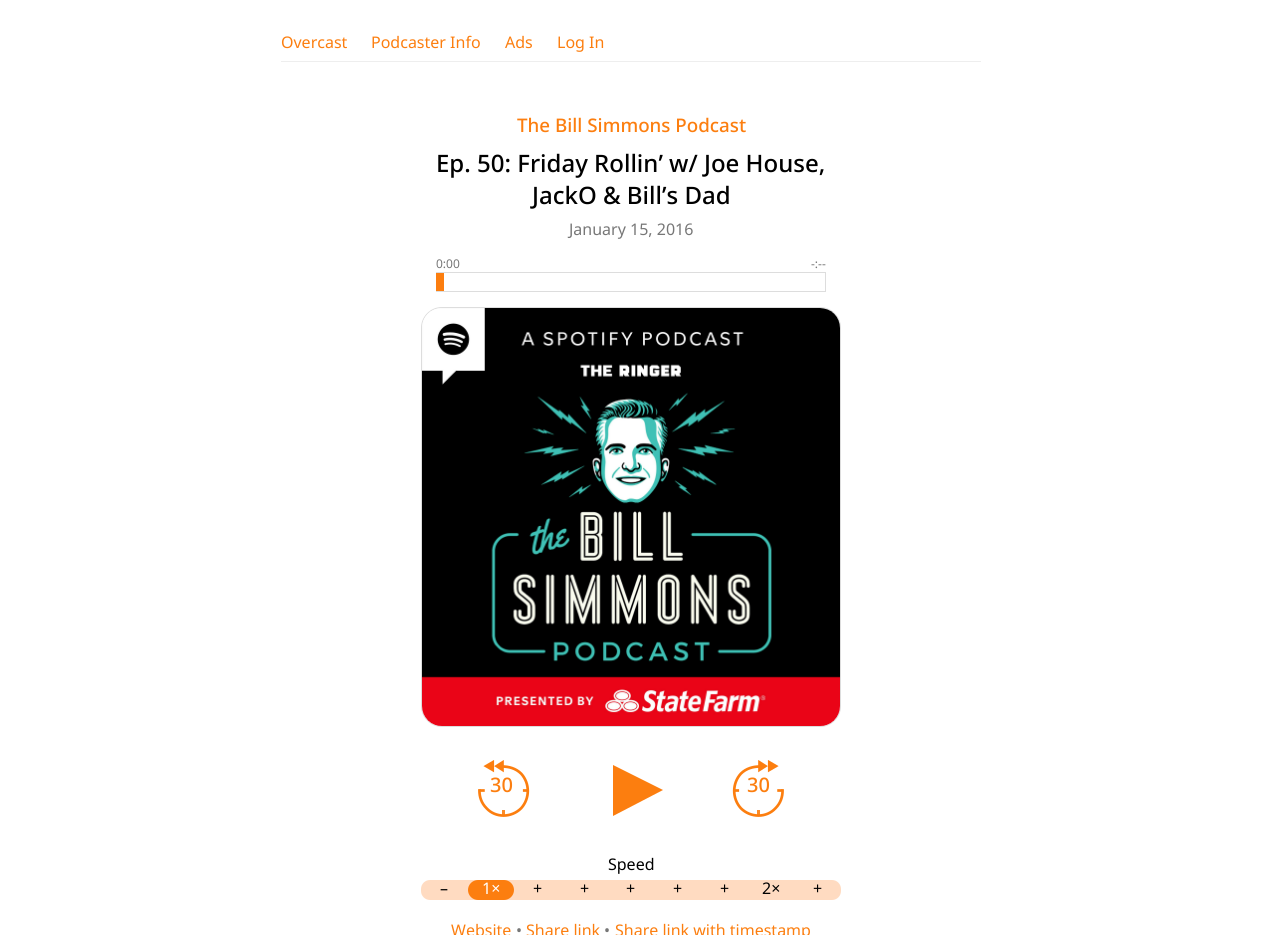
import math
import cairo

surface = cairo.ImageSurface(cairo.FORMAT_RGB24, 1262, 935)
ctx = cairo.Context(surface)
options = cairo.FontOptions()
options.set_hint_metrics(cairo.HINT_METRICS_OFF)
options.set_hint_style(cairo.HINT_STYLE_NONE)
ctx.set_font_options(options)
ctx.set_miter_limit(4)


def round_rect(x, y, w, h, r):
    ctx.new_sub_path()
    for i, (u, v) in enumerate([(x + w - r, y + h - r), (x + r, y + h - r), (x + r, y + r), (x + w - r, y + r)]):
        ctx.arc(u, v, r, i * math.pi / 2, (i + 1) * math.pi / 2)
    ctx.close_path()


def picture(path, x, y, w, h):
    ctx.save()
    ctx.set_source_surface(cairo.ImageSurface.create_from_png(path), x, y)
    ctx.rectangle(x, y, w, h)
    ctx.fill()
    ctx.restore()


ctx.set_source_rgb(1, 1, 1)
ctx.paint()
ctx.set_source_rgb(0.933, 0.933, 0.933)
ctx.rectangle(281, 61, 700, 1)
ctx.fill()
ctx.select_font_face("Noto Sans")
ctx.set_font_size(16)
ctx.set_source_rgb(0.988, 0.494, 0.059)
ctx.move_to(281, 48)
ctx.show_text("Overcast")
ctx.move_to(371, 48)
ctx.show_text("Podcaster Info")
ctx.move_to(505, 48)
ctx.show_text("Ads")
ctx.move_to(557, 48)
ctx.show_text("Log In")
ctx.select_font_face("Noto Sans Medium")
ctx.set_font_size(18.75)
ctx.move_to(517, 132)
ctx.show_text("The Bill Simmons Podcast")
ctx.set_font_size(24)
ctx.set_source_rgb(0, 0, 0)
ctx.move_to(436, 172)
ctx.show_text("Ep. 50: Friday Rollin’ w/ Joe House,")
ctx.move_to(532, 204)
ctx.show_text("JackO & Bill’s Dad")
ctx.select_font_face("Noto Sans")
ctx.set_font_size(16)
ctx.set_source_rgb(0.467, 0.467, 0.467)
ctx.move_to(569, 235)
ctx.show_text("January 15, 2016")
ctx.set_font_size(12)
ctx.move_to(436, 268)
ctx.show_text("0:00")
ctx.move_to(811, 268)
ctx.show_text("-:--")
ctx.rectangle(436.5, 272.5, 389, 19)
ctx.set_source_rgb(0.867, 0.867, 0.867)
ctx.set_line_width(1)
ctx.stroke()
ctx.set_source_rgb(0.988, 0.494, 0.059)
ctx.rectangle(436, 273, 8, 18)
ctx.fill()
round_rect(421.5, 307.5, 419, 419, 20.5)
ctx.set_source_rgb(0.867, 0.867, 0.867)
ctx.stroke()
picture("img1.png", 422, 308, 418, 418)
picture("img2.png", 478, 760, 52, 57)
ctx.select_font_face("Noto Sans Medium")
ctx.set_font_size(20)
ctx.set_source_rgb(0.988, 0.494, 0.059)
ctx.move_to(490, 792)
ctx.show_text("30")
ctx.new_path()
ctx.move_to(613, 765)
ctx.line_to(663, 790)
ctx.line_to(613, 816)
ctx.close_path()
ctx.fill()
picture("img3.png", 732, 760, 52, 57)
ctx.move_to(747, 792)
ctx.show_text("30")
ctx.select_font_face("Noto Sans")
ctx.set_font_size(16)
ctx.set_source_rgb(0, 0, 0)
ctx.move_to(608, 870)
ctx.show_text("Speed")
ctx.set_source_rgb(1, 0.859, 0.757)
round_rect(421, 880, 420, 20, 9)
ctx.fill()
ctx.set_source_rgb(0.988, 0.494, 0.059)
round_rect(468, 880, 46, 20, 10)
ctx.fill()
ctx.set_source_rgb(0, 0, 0)
ctx.move_to(440, 894)
ctx.show_text("–")
ctx.set_source_rgb(1, 1, 1)
ctx.move_to(482, 894)
ctx.show_text("1×")
ctx.set_source_rgb(0, 0, 0)
ctx.move_to(533, 894)
ctx.show_text("+")
ctx.move_to(580, 894)
ctx.show_text("+")
ctx.move_to(626, 894)
ctx.show_text("+")
ctx.move_to(673, 894)
ctx.show_text("+")
ctx.move_to(720, 894)
ctx.show_text("+")
ctx.move_to(762, 894)
ctx.show_text("2×")
ctx.move_to(813, 894)
ctx.show_text("+")
ctx.set_source_rgb(0.988, 0.494, 0.059)
ctx.move_to(451, 936)
ctx.show_text("Website")
ctx.set_source_rgb(0.467, 0.467, 0.467)
ctx.move_to(516, 936)
ctx.show_text("•")
ctx.set_source_rgb(0.988, 0.494, 0.059)
ctx.move_to(526, 936)
ctx.show_text("Share link")
ctx.set_source_rgb(0.467, 0.467, 0.467)
ctx.move_to(604, 936)
ctx.show_text("•")
ctx.set_source_rgb(0.988, 0.494, 0.059)
ctx.move_to(615, 936)
ctx.show_text("Share link with timestamp")
surface.write_to_png("page.png")
